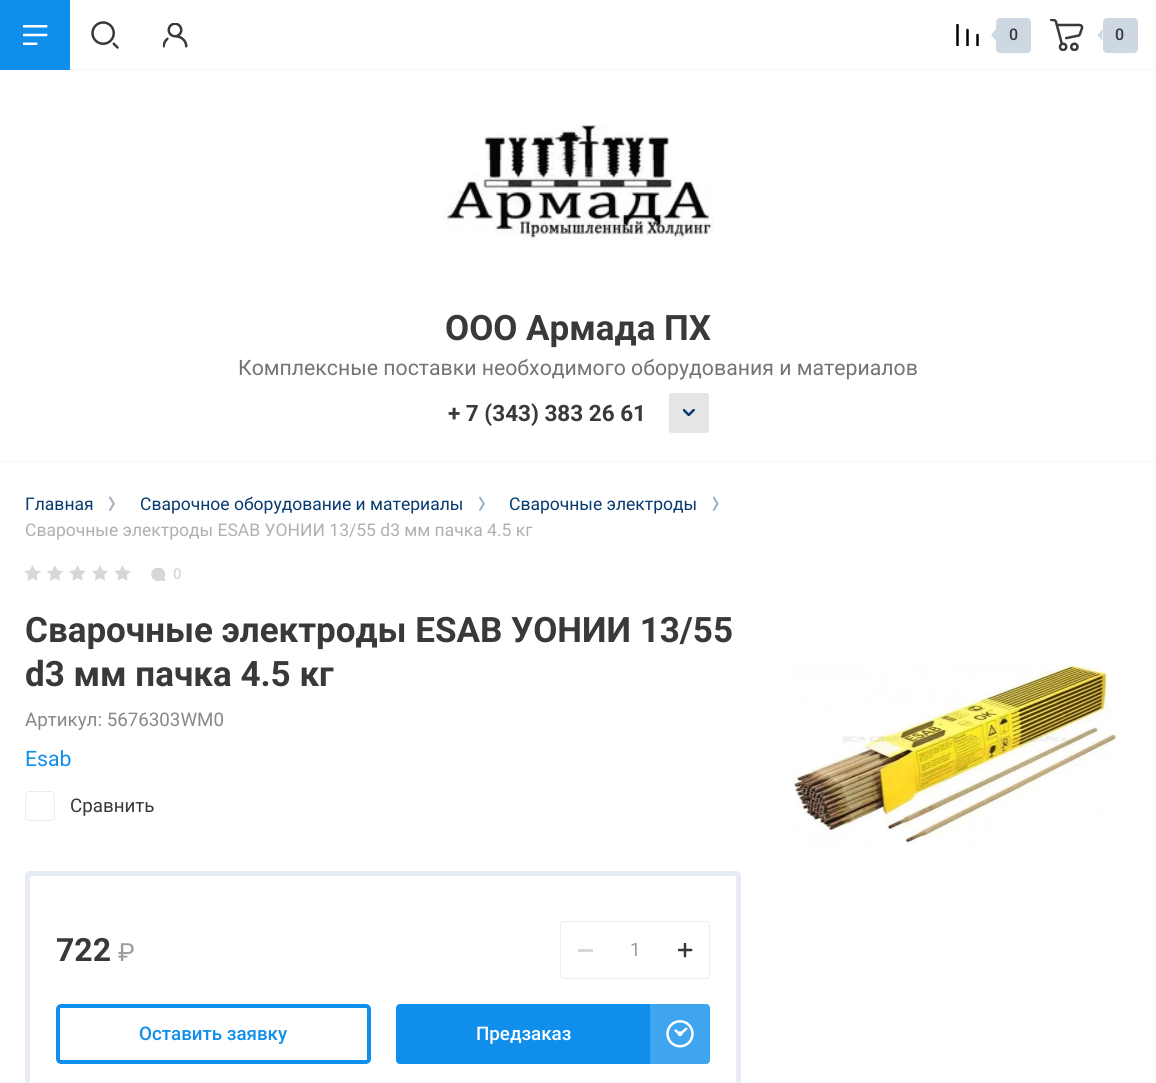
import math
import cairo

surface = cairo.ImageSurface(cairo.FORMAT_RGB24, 1156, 1083)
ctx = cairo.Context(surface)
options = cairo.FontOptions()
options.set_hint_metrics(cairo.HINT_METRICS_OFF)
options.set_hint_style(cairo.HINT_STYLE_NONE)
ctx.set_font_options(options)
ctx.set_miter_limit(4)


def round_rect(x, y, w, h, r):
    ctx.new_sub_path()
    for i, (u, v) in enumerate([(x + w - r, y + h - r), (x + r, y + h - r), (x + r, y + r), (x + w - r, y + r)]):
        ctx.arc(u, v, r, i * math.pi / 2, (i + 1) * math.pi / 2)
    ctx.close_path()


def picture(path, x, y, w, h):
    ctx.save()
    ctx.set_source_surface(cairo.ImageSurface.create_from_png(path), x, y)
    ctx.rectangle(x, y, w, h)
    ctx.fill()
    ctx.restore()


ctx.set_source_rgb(1, 1, 1)
ctx.paint()
ctx.set_source_rgb(0.961, 0.961, 0.961)
ctx.rectangle(0, 461, 1156, 1)
ctx.fill()
ctx.rectangle(70, 69, 1086, 1)
ctx.fill()
ctx.set_source_rgb(0.059, 0.557, 0.918)
ctx.rectangle(0, 0, 70, 70)
ctx.fill()
picture("img1.png", 23, 25, 25, 20)
picture("img2.png", 91, 21, 28, 28)
picture("img3.png", 163, 23, 25, 25)
picture("img4.png", 956, 24, 23, 22)
ctx.set_source_rgb(0.808, 0.847, 0.886)
round_rect(996, 18, 35, 35, 4)
ctx.fill()
ctx.new_path()
ctx.move_to(996, 29)
ctx.line_to(996, 41)
ctx.line_to(991, 35)
ctx.close_path()
ctx.fill()
ctx.select_font_face("Roboto Medium")
ctx.set_font_size(16)
ctx.set_source_rgb(0.224, 0.224, 0.224)
ctx.move_to(1009, 40)
ctx.show_text("0")
picture("img5.png", 1050, 19, 34, 32)
ctx.set_source_rgb(0.808, 0.847, 0.886)
round_rect(1103, 18, 35, 35, 4)
ctx.fill()
ctx.new_path()
ctx.move_to(1102.5, 29)
ctx.line_to(1102.5, 41)
ctx.line_to(1097.5, 35)
ctx.close_path()
ctx.fill()
ctx.set_source_rgb(0.224, 0.224, 0.224)
ctx.move_to(1115, 40)
ctx.show_text("0")
picture("img6.png", 444, 125, 270, 115)
ctx.select_font_face("Roboto", cairo.FONT_SLANT_NORMAL, cairo.FONT_WEIGHT_BOLD)
ctx.set_font_size(35)
ctx.move_to(445, 340)
ctx.show_text("ООО Армада ПХ")
ctx.select_font_face("Roboto")
ctx.set_font_size(21.25)
ctx.set_source_rgb(0.455, 0.455, 0.455)
ctx.move_to(238, 375)
ctx.show_text("Комплексные поставки необходимого оборудования и материалов")
ctx.select_font_face("Roboto", cairo.FONT_SLANT_NORMAL, cairo.FONT_WEIGHT_BOLD)
ctx.set_font_size(22.5)
ctx.set_source_rgb(0.224, 0.224, 0.224)
ctx.move_to(448, 421)
ctx.show_text("+ 7 (343) 383 26 61")
ctx.set_source_rgb(0.898, 0.898, 0.898)
round_rect(669, 393, 40, 40, 2.5)
ctx.fill()
picture("img7.png", 683, 409, 12, 7)
ctx.select_font_face("Roboto")
ctx.set_font_size(17.5)
ctx.set_source_rgb(0.031, 0.227, 0.435)
ctx.move_to(25, 510)
ctx.show_text("Главная")
picture("img8.png", 109, 496, 6, 15)
ctx.move_to(140, 510)
ctx.show_text("Сварочное оборудование и материалы")
picture("img8.png", 479, 496, 6, 15)
ctx.move_to(509, 510)
ctx.show_text("Сварочные электроды")
picture("img9.png", 713, 496, 6, 15)
ctx.set_source_rgb(0.69, 0.69, 0.69)
ctx.move_to(25, 536)
ctx.show_text("Сварочные электроды ESAB УОНИИ 13/55 d3 мм пачка 4.5 кг")
picture("img10.png", 24, 565, 107, 16)
picture("img11.png", 151, 568, 15, 13)
ctx.select_font_face("Roboto Medium")
ctx.set_font_size(15)
ctx.set_source_rgb(0.843, 0.843, 0.843)
ctx.move_to(173, 579)
ctx.show_text("0")
ctx.select_font_face("Roboto", cairo.FONT_SLANT_NORMAL, cairo.FONT_WEIGHT_BOLD)
ctx.set_font_size(35)
ctx.set_source_rgb(0.224, 0.224, 0.224)
ctx.move_to(25, 642)
ctx.show_text("Сварочные электроды ESAB УОНИИ 13/55")
ctx.move_to(25, 686)
ctx.show_text("d3 мм пачка 4.5 кг")
ctx.select_font_face("Roboto")
ctx.set_font_size(18.75)
ctx.set_source_rgb(0.533, 0.533, 0.533)
ctx.move_to(25, 726)
ctx.show_text("Артикул: 5676303WM0")
ctx.set_font_size(21.25)
ctx.set_source_rgb(0.059, 0.557, 0.918)
ctx.move_to(25, 766)
ctx.show_text("Esab")
round_rect(25.5, 791.5, 29, 29, 3.5)
ctx.set_source_rgb(0.922, 0.922, 0.922)
ctx.set_line_width(1)
ctx.stroke()
ctx.set_font_size(18.75)
ctx.set_source_rgb(0.224, 0.224, 0.224)
ctx.move_to(70, 812)
ctx.show_text("Сравнить")
round_rect(560.5, 921.5, 149, 57, 3.5)
ctx.set_source_rgb(0.922, 0.922, 0.922)
ctx.stroke()
ctx.set_source_rgb(0.843, 0.843, 0.843)
ctx.rectangle(578, 949, 15, 3)
ctx.fill()
picture("img12.png", 678, 943, 15, 15)
round_rect(28, 874, 710, 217, 2)
ctx.set_source_rgb(0.902, 0.922, 0.945)
ctx.set_line_width(6)
ctx.stroke()
round_rect(32, 878, 702, 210, 0.5)
ctx.set_source_rgb(1, 1, 1)
ctx.set_line_width(4)
ctx.stroke()
ctx.select_font_face("Roboto", cairo.FONT_SLANT_NORMAL, cairo.FONT_WEIGHT_BOLD)
ctx.set_font_size(32)
ctx.set_source_rgb(0.224, 0.224, 0.224)
ctx.move_to(56, 961)
ctx.show_text("722")
ctx.select_font_face("Roboto")
ctx.set_font_size(25)
ctx.set_source_rgb(0.612, 0.612, 0.612)
ctx.move_to(118, 961)
ctx.show_text("₽")
ctx.set_font_size(18.75)
ctx.move_to(630, 956)
ctx.show_text("1")
round_rect(58, 1006, 311, 56, 3)
ctx.set_source_rgb(0.059, 0.557, 0.918)
ctx.stroke()
ctx.select_font_face("Roboto Medium")
ctx.move_to(139, 1040)
ctx.show_text("Оставить заявку")
round_rect(396, 1004, 314, 60, 4)
ctx.fill()
ctx.set_source_rgb(1, 1, 1)
ctx.move_to(476, 1040)
ctx.show_text("Предзаказ")
ctx.set_source_rgba(1, 1, 1, 0.2)
ctx.new_path()
ctx.move_to(650, 1004)
ctx.line_to(706, 1004)
ctx.curve_to(708, 1004, 710, 1006, 710, 1008)
ctx.line_to(710, 1060)
ctx.curve_to(710, 1062, 708, 1064, 706, 1064)
ctx.line_to(650, 1064)
ctx.close_path()
ctx.fill()
picture("img13.png", 666, 1020, 28, 28)
picture("img14.png", 793, 662, 324, 183)
surface.write_to_png("page.png")
